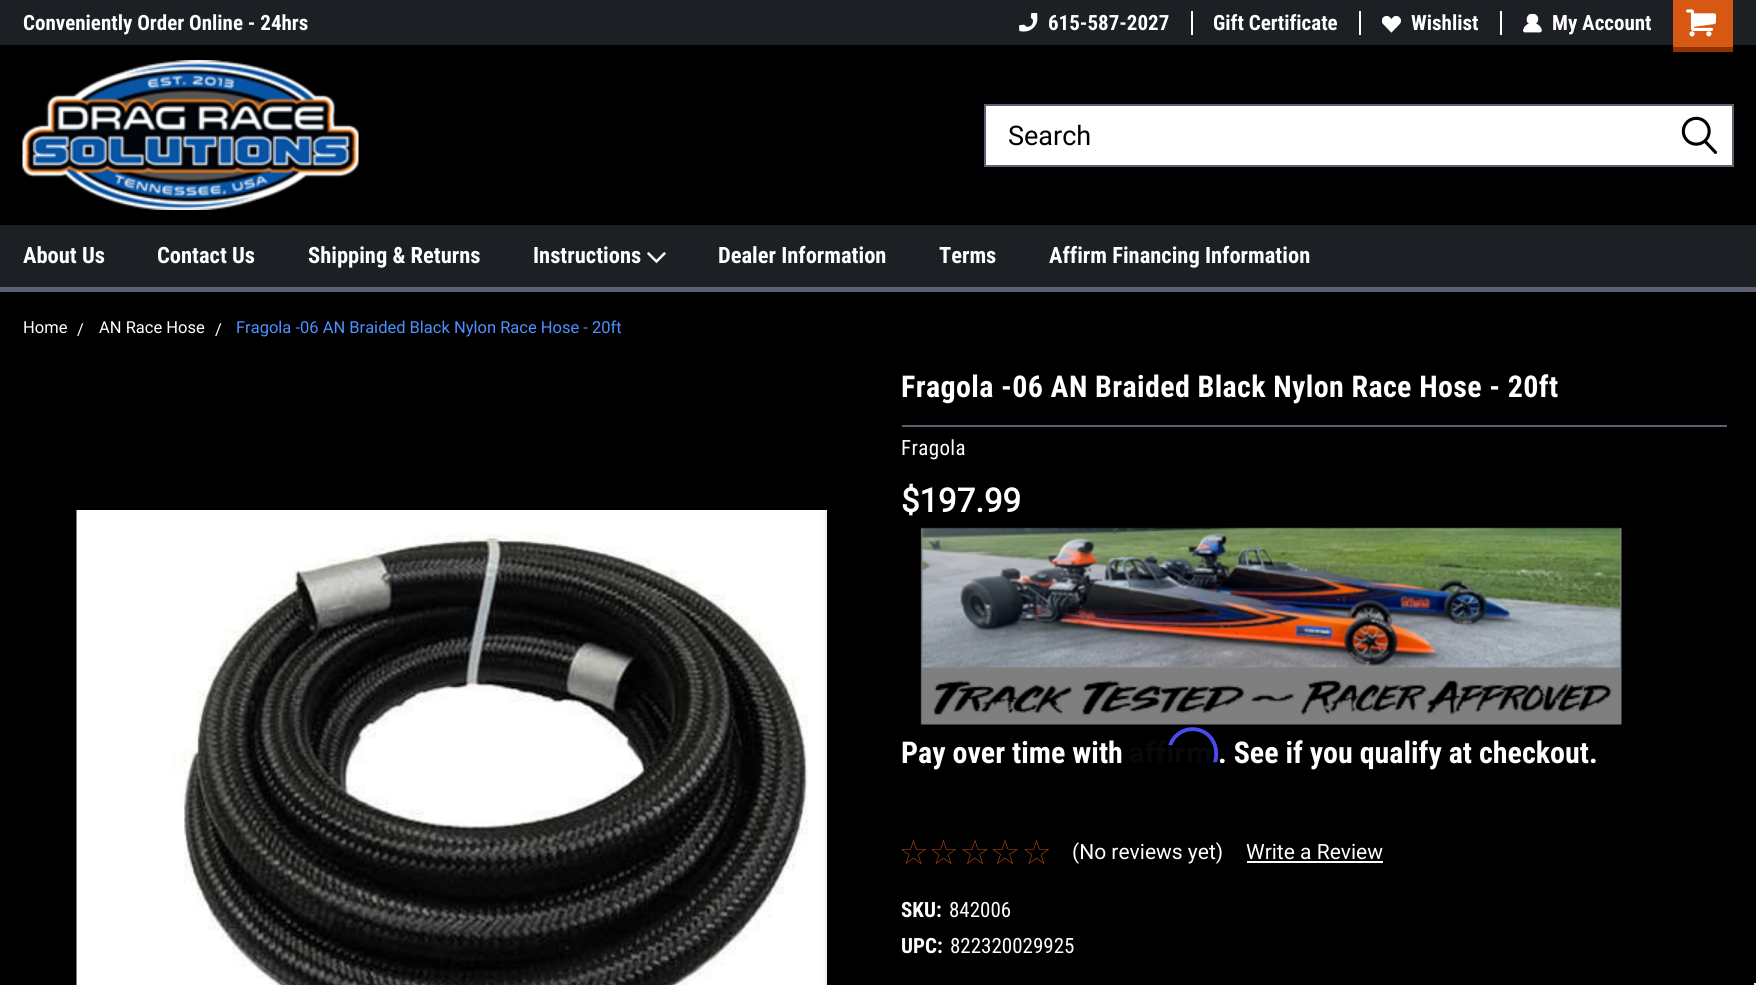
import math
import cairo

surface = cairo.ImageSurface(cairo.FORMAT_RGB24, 1756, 985)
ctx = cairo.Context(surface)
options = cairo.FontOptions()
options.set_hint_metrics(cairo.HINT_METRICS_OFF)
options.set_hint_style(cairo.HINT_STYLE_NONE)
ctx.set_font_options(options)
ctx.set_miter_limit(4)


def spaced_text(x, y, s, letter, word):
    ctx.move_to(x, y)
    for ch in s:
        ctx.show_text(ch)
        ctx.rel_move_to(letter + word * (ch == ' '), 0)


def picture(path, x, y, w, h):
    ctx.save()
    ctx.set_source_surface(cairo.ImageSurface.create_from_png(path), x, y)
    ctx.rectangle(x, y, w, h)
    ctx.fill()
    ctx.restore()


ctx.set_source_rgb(0, 0, 0)
ctx.paint()
ctx.set_source_rgb(0.11, 0.122, 0.141)
ctx.rectangle(0, 0, 1756, 45)
ctx.fill()
ctx.select_font_face("Roboto Condensed", cairo.FONT_SLANT_NORMAL, cairo.FONT_WEIGHT_BOLD)
ctx.set_font_size(21)
ctx.set_source_rgb(1, 1, 1)
ctx.move_to(23, 30)
ctx.show_text("Conveniently Order Online - 24hrs")
ctx.rectangle(1191, 11, 2, 24)
ctx.fill()
picture("img1.png", 1019, 12, 19, 20)
ctx.move_to(1048, 30)
ctx.show_text("615-587-2027")
ctx.rectangle(1359, 11, 2, 24)
ctx.fill()
ctx.move_to(1213, 30)
ctx.show_text("Gift Certificate")
ctx.rectangle(1500, 11, 2, 24)
ctx.fill()
picture("img2.png", 1382, 15, 19, 18)
ctx.move_to(1411, 30)
ctx.show_text("Wishlist")
picture("img3.png", 1523, 14, 19, 19)
ctx.move_to(1552, 30)
ctx.show_text("My Account")
ctx.set_source_rgb(0.843, 0.345, 0.075)
ctx.rectangle(1673, 0, 60, 47)
ctx.fill()
ctx.set_source_rgb(0.561, 0.196, 0)
ctx.rectangle(1673, 47, 60, 5)
ctx.fill()
picture("img4.png", 1686, 9, 30, 28)
picture("img5.png", 22, 60, 337, 150)
ctx.set_source_rgb(1, 1, 1)
ctx.rectangle(985, 105, 748, 61)
ctx.fill_preserve()
ctx.set_source_rgb(0.357, 0.376, 0.451)
ctx.stroke()
ctx.select_font_face("Roboto")
ctx.set_font_size(27)
ctx.set_source_rgb(0, 0, 0)
ctx.move_to(1008, 145)
ctx.show_text("Search")
picture("img6.png", 1681, 116, 37, 38)
ctx.set_source_rgb(0.11, 0.122, 0.141)
ctx.rectangle(0, 225, 1756, 62)
ctx.fill()
ctx.set_source_rgb(0.357, 0.376, 0.451)
ctx.rectangle(0, 287, 1756, 5)
ctx.fill()
ctx.select_font_face("Roboto Condensed", cairo.FONT_SLANT_NORMAL, cairo.FONT_WEIGHT_BOLD)
ctx.set_font_size(22.5)
ctx.set_source_rgb(1, 1, 1)
ctx.move_to(23, 263)
ctx.show_text("About Us")
ctx.move_to(157, 263)
ctx.show_text("Contact Us")
ctx.move_to(308, 263)
ctx.show_text("Shipping & Returns")
ctx.move_to(533, 263)
ctx.show_text("Instructions")
picture("img7.png", 647, 252, 19, 12)
ctx.move_to(718, 263)
ctx.show_text("Dealer Information")
ctx.move_to(939, 263)
ctx.show_text("Terms")
ctx.move_to(1049, 263)
ctx.show_text("Affirm Financing Information")
ctx.select_font_face("Roboto")
ctx.set_font_size(16.5)
ctx.move_to(23, 333)
ctx.show_text("Home")
ctx.move_to(77, 335)
ctx.show_text("/")
ctx.move_to(99, 333)
ctx.show_text("AN Race Hose")
ctx.move_to(215, 335)
ctx.show_text("/")
ctx.set_source_rgb(0.298, 0.569, 0.992)
ctx.move_to(236, 333)
ctx.show_text("Fragola -06 AN Braided Black Nylon Race Hose - 20ft")
picture("img8.png", 76, 510, 751, 475)
ctx.set_source_rgb(0.357, 0.376, 0.451)
ctx.rectangle(902, 425, 825, 2)
ctx.fill()
ctx.select_font_face("Roboto Condensed", cairo.FONT_SLANT_NORMAL, cairo.FONT_WEIGHT_BOLD)
ctx.set_font_size(30)
ctx.set_source_rgb(1, 1, 1)
spaced_text(901, 397, "Fragola -06 AN Braided Black Nylon Race Hose - 20ft", 0.38, 0)
ctx.select_font_face("Roboto Condensed")
ctx.set_font_size(21)
spaced_text(901, 455, "Fragola", 0.38, 0)
ctx.select_font_face("Roboto", cairo.FONT_SLANT_NORMAL, cairo.FONT_WEIGHT_BOLD)
ctx.set_font_size(33)
ctx.move_to(901, 512)
ctx.show_text("$197.99")
picture("img9.png", 920, 527, 702, 198)
ctx.select_font_face("Roboto Condensed", cairo.FONT_SLANT_NORMAL, cairo.FONT_WEIGHT_BOLD)
ctx.set_font_size(30)
ctx.move_to(901, 763)
ctx.show_text("Pay over time with")
picture("img11.png", 1129, 740, 81, 23)
picture("img10.png", 1168, 727, 51, 36)
ctx.move_to(1218, 763)
ctx.show_text(". See if you qualify at checkout.")
picture("img12.png", 902, 840, 24, 24)
picture("img12.png", 932, 840, 24, 24)
ctx.new_path()
ctx.move_to(975, 840.5)
ctx.line_to(978, 849.5)
ctx.line_to(987, 849.5)
ctx.line_to(979.5, 854.5)
ctx.line_to(982.5, 863.5)
ctx.line_to(975, 858)
ctx.line_to(967.5, 863.5)
ctx.line_to(970.5, 854.5)
ctx.line_to(963, 849.5)
ctx.line_to(972, 849.5)
ctx.close_path()
ctx.move_to(1005, 840.5)
ctx.line_to(1008, 849.5)
ctx.line_to(1017, 849.5)
ctx.line_to(1009.5, 854.5)
ctx.line_to(1012.5, 863.5)
ctx.line_to(1005, 858)
ctx.line_to(997.5, 863.5)
ctx.line_to(1000.5, 854.5)
ctx.line_to(993, 849.5)
ctx.line_to(1002, 849.5)
ctx.close_path()
ctx.set_source_rgb(0.843, 0.345, 0.075)
ctx.set_line_width(0.5)
ctx.stroke()
picture("img12.png", 1025, 840, 24, 24)
ctx.select_font_face("Roboto")
ctx.set_font_size(21)
ctx.set_source_rgb(1, 1, 1)
ctx.move_to(1072, 859)
ctx.show_text("(No reviews yet)")
ctx.move_to(1246, 859)
ctx.show_text("Write a Review")
ctx.rectangle(1247, 861, 136, 2)
ctx.fill()
ctx.select_font_face("Roboto Condensed", cairo.FONT_SLANT_NORMAL, cairo.FONT_WEIGHT_BOLD)
ctx.move_to(901, 917)
ctx.show_text("SKU:")
ctx.select_font_face("Roboto Condensed")
ctx.move_to(949, 917)
ctx.show_text("842006")
ctx.select_font_face("Roboto Condensed", cairo.FONT_SLANT_NORMAL, cairo.FONT_WEIGHT_BOLD)
ctx.move_to(901, 953)
ctx.show_text("UPC:")
ctx.select_font_face("Roboto Condensed")
ctx.move_to(950, 953)
ctx.show_text("822320029925")
ctx.set_source_rgb(0.961, 0.961, 0.961)
ctx.rectangle(1754, 983, 2, 2)
ctx.fill()
surface.write_to_png("page.png")
